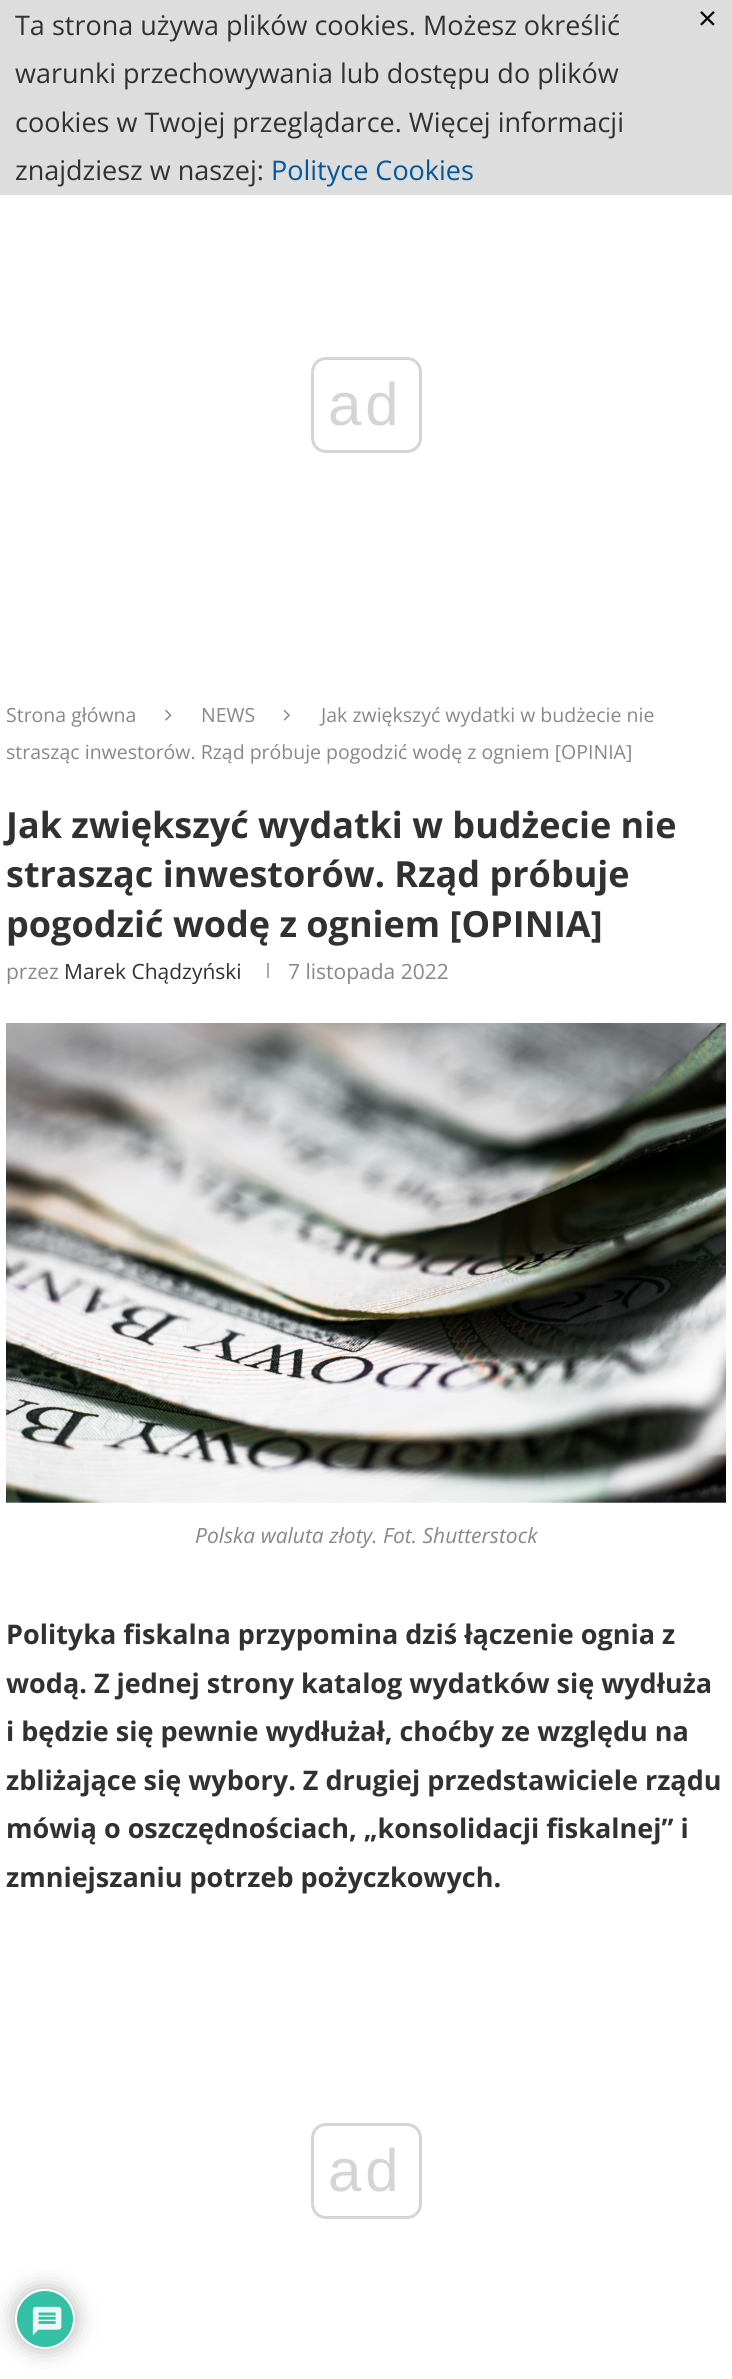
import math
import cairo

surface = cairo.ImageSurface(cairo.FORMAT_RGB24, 732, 2379)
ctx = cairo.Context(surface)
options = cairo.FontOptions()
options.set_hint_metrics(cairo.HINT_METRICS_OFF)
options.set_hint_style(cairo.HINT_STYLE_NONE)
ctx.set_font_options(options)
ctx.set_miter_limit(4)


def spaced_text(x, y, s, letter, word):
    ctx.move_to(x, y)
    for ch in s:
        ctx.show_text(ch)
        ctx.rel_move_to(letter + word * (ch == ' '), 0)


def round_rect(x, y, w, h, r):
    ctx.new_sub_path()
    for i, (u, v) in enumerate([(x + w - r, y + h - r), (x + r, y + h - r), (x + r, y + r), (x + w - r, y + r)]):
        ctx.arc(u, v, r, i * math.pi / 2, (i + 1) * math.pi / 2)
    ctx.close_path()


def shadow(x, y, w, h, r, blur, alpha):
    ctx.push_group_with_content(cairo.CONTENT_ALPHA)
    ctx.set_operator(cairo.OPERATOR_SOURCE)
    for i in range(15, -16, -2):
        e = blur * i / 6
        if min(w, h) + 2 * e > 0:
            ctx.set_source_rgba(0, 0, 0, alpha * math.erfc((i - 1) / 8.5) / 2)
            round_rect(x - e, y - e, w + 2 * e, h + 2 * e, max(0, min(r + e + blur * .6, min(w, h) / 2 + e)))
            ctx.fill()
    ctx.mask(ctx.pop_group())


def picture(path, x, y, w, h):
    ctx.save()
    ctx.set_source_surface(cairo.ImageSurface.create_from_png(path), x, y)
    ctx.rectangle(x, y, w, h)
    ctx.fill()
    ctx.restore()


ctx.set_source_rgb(1, 1, 1)
ctx.paint()
ctx.set_source_rgb(0.867, 0.867, 0.867)
ctx.rectangle(0, 0, 732, 195)
ctx.fill()
ctx.select_font_face("Open Sans")
ctx.set_font_size(27)
ctx.set_source_rgb(0.192, 0.192, 0.192)
ctx.move_to(15, 35)
ctx.show_text("Ta strona używa plików cookies. Możesz określić")
ctx.move_to(15, 83)
ctx.show_text("warunki przechowywania lub dostępu do plików")
ctx.move_to(15, 132)
ctx.show_text("cookies w Twojej przeglądarce. Więcej informacji")
ctx.move_to(15, 180)
ctx.show_text("znajdziesz w naszej:")
ctx.set_source_rgb(0.004, 0.341, 0.608)
ctx.move_to(271, 180)
ctx.show_text("Polityce Cookies")
ctx.set_font_size(33)
ctx.set_source_rgb(0, 0, 0)
ctx.move_to(698, 30)
ctx.show_text("×")
round_rect(312.5, 358.5, 108, 93, 13.5)
ctx.set_source_rgb(0.835, 0.835, 0.835)
ctx.set_line_width(3)
ctx.stroke()
ctx.select_font_face("Liberation Sans")
ctx.set_font_size(60)
spaced_text(328, 425, "ad", 4, 0)
ctx.select_font_face("Open Sans")
ctx.set_font_size(19.5)
ctx.set_source_rgb(0.533, 0.533, 0.533)
ctx.move_to(6, 722)
ctx.show_text("Strona główna")
picture("img1.png", 165, 709, 7, 12)
ctx.move_to(201, 722)
ctx.show_text("NEWS")
picture("img2.png", 283, 709, 7, 12)
ctx.move_to(321, 722)
ctx.show_text("Jak zwiększyć wydatki w budżecie nie")
ctx.move_to(6, 759)
ctx.show_text("strasząc inwestorów. Rząd próbuje pogodzić wodę z ogniem [OPINIA]")
ctx.select_font_face("Open Sans", cairo.FONT_SLANT_NORMAL, cairo.FONT_WEIGHT_BOLD)
ctx.set_font_size(36)
ctx.set_source_rgb(0.192, 0.192, 0.192)
ctx.move_to(6, 838)
ctx.show_text("Jak zwiększyć wydatki w budżecie nie")
ctx.move_to(6, 887)
ctx.show_text("strasząc inwestorów. Rząd próbuje")
ctx.move_to(6, 937)
ctx.show_text("pogodzić wodę z ogniem [OPINIA]")
ctx.select_font_face("Open Sans")
ctx.set_font_size(21)
ctx.set_source_rgb(0.533, 0.533, 0.533)
ctx.move_to(6, 979)
ctx.show_text("przez")
ctx.set_source_rgb(0.192, 0.192, 0.192)
ctx.move_to(64, 979)
ctx.show_text("Marek Chądzyński")
ctx.set_source_rgb(0.675, 0.675, 0.675)
ctx.rectangle(267, 963, 2, 15)
ctx.fill()
ctx.set_source_rgb(0.533, 0.533, 0.533)
ctx.move_to(288, 979)
ctx.show_text("7 listopada 2022")
picture("img3.png", 6, 1023, 720, 480)
ctx.select_font_face("Open Sans", cairo.FONT_SLANT_ITALIC)
ctx.move_to(195, 1543)
ctx.show_text("Polska waluta złoty. Fot. Shutterstock")
ctx.select_font_face("Open Sans", cairo.FONT_SLANT_NORMAL, cairo.FONT_WEIGHT_BOLD)
ctx.set_font_size(27)
ctx.set_source_rgb(0.192, 0.192, 0.192)
ctx.move_to(6, 1644)
ctx.show_text("Polityka fiskalna przypomina dziś łączenie ognia z")
ctx.move_to(6, 1693)
ctx.show_text("wodą. Z jednej strony katalog wydatków się wydłuża")
ctx.move_to(6, 1741)
ctx.show_text("i będzie się pewnie wydłużał, choćby ze względu na")
ctx.move_to(6, 1790)
ctx.show_text("zbliżające się wybory. Z drugiej przedstawiciele rządu")
ctx.move_to(6, 1838)
ctx.show_text("mówią o oszczędnościach, „konsolidacji fiskalnej” i")
ctx.move_to(6, 1887)
ctx.show_text("zmniejszaniu potrzeb pożyczkowych.")
round_rect(312.5, 2124.5, 108, 93, 13.5)
ctx.set_source_rgb(0.835, 0.835, 0.835)
ctx.stroke()
ctx.select_font_face("Liberation Sans")
ctx.set_font_size(60)
spaced_text(328, 2191, "ad", 4, 0)
ctx.set_source_rgb(0.702, 0.702, 0.702)
shadow(15, 2289, 60, 60, 30, 11, 1)
ctx.set_source_rgb(0.204, 0.753, 0.643)
ctx.arc(45, 2319, 29, 0, 2 * math.pi)
ctx.fill_preserve()
ctx.set_source_rgb(1, 1, 1)
ctx.set_line_width(2)
ctx.stroke()
picture("img4.png", 32, 2306, 30, 30)
surface.write_to_png("page.png")
